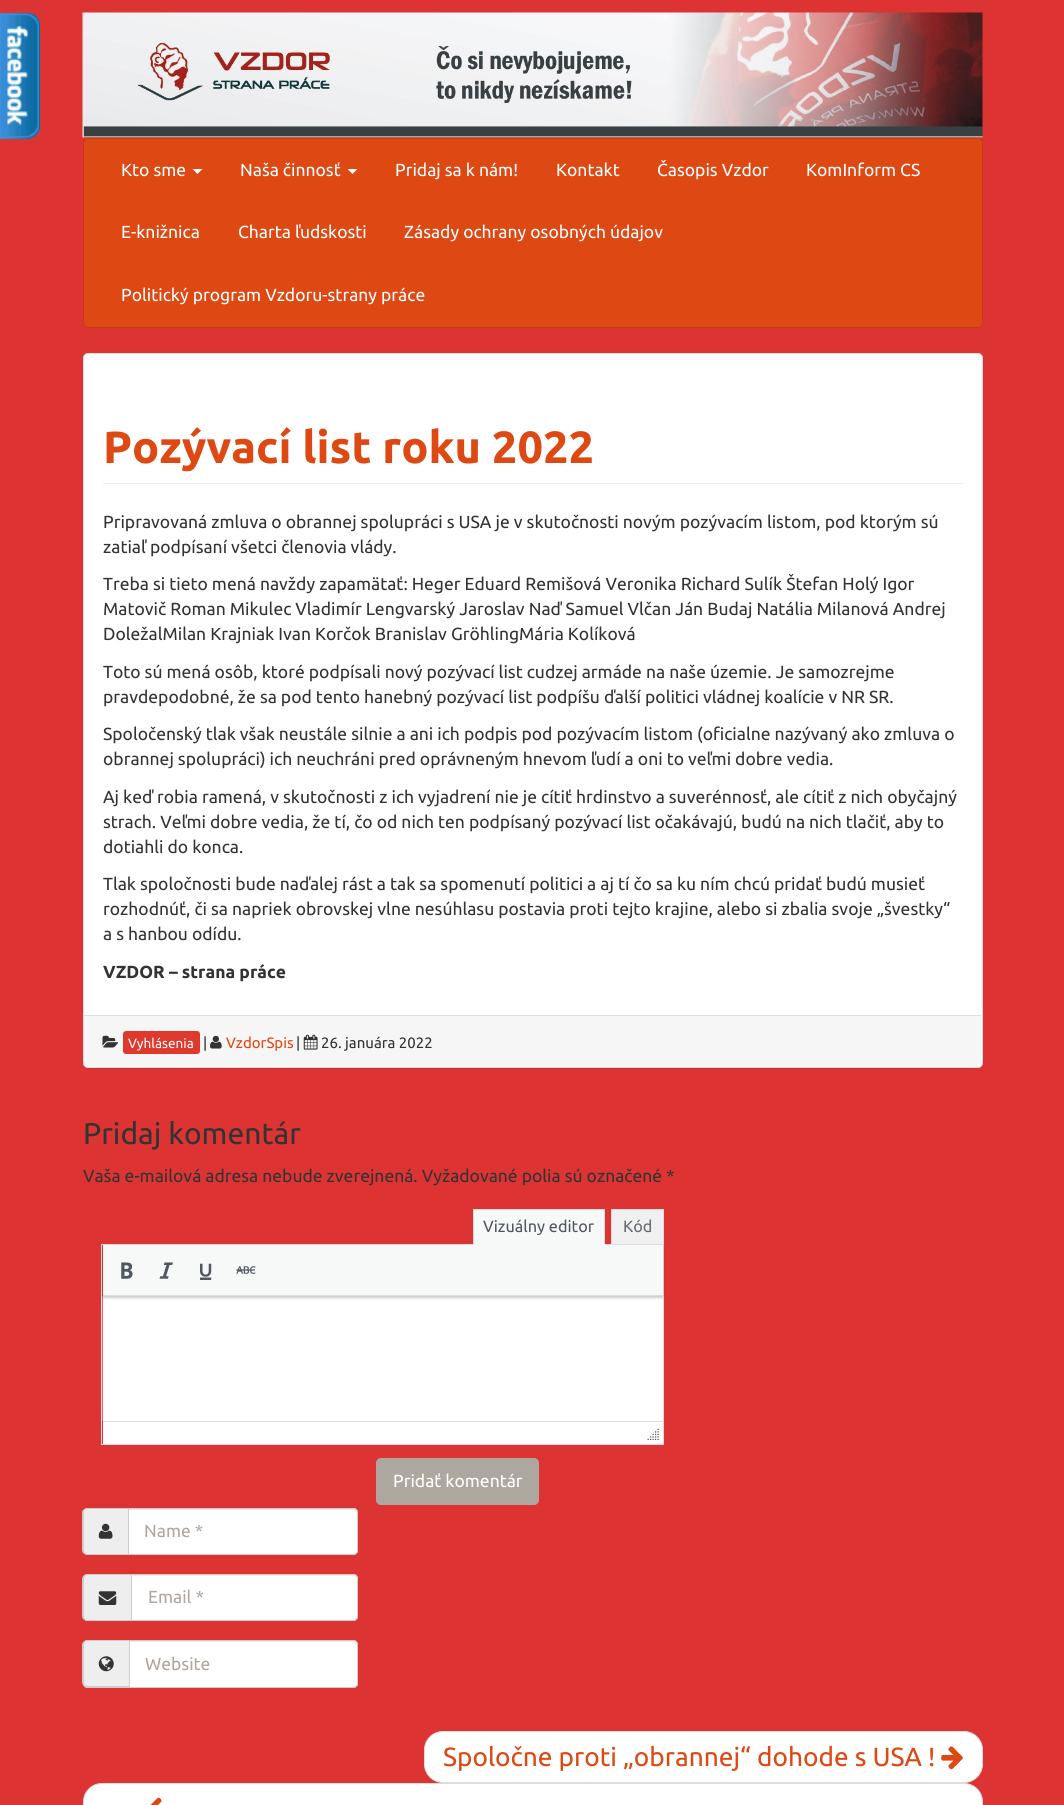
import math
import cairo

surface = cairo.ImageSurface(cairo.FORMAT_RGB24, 1064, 1805)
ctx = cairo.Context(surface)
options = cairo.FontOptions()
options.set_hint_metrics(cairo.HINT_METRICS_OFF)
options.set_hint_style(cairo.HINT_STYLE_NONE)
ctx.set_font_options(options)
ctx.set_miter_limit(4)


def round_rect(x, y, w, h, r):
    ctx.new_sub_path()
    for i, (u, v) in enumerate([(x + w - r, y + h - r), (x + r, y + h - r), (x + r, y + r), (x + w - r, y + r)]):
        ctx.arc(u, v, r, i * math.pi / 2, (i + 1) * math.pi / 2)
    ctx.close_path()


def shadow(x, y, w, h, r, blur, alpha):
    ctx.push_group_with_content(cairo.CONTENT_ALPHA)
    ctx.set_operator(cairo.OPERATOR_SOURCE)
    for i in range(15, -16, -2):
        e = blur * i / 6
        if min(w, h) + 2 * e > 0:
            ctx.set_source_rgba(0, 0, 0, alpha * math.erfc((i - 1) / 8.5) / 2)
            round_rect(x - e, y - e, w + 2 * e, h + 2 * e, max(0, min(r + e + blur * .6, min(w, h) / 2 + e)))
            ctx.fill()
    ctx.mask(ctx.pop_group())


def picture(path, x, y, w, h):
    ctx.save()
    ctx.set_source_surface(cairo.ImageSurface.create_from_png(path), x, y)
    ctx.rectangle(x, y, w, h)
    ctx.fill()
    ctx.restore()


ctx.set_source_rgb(0.867, 0.2, 0.2)
ctx.paint()
picture("img1.png", 0, 13, 40, 126)
picture("img2.png", 82, 12, 901, 126)
ctx.set_source_rgb(0.867, 0.282, 0.078)
round_rect(83.5, 138.5, 899, 189, 4.5)
ctx.fill_preserve()
ctx.set_source_rgb(0.749, 0.243, 0.067)
ctx.set_line_width(1)
ctx.stroke()
ctx.select_font_face("Ubuntu")
ctx.set_font_size(17.5)
ctx.set_source_rgb(1, 1, 1)
ctx.move_to(121, 176)
ctx.show_text("Kto sme")
ctx.new_path()
ctx.move_to(192.5, 169)
ctx.line_to(202.5, 169)
ctx.line_to(197.5, 174)
ctx.close_path()
ctx.fill()
ctx.move_to(240, 176)
ctx.show_text("Naša činnosť")
ctx.new_path()
ctx.move_to(347.5, 169)
ctx.line_to(357.5, 169)
ctx.line_to(352.5, 174)
ctx.close_path()
ctx.fill()
ctx.move_to(395, 176)
ctx.show_text("Pridaj sa k nám!")
ctx.move_to(556, 176)
ctx.show_text("Kontakt")
ctx.move_to(657, 176)
ctx.show_text("Časopis Vzdor")
ctx.move_to(806, 176)
ctx.show_text("KomInform CS")
ctx.move_to(121, 238)
ctx.show_text("E-knižnica")
ctx.move_to(238, 238)
ctx.show_text("Charta ľudskosti")
ctx.move_to(404, 238)
ctx.show_text("Zásady ochrany osobných údajov")
ctx.move_to(121, 301)
ctx.show_text("Politický program Vzdoru-strany práce")
ctx.set_source_rgb(0, 0, 0)
shadow(83, 354, 900, 715, 5, 0.5, 0.05)
ctx.set_source_rgb(1, 1, 1)
round_rect(83.5, 353.5, 899, 714, 4.5)
ctx.fill_preserve()
ctx.set_source_rgb(0.867, 0.867, 0.867)
ctx.stroke()
ctx.set_source_rgb(0.933, 0.933, 0.933)
ctx.rectangle(103, 483, 860, 1)
ctx.fill()
ctx.select_font_face("Ubuntu", cairo.FONT_SLANT_NORMAL, cairo.FONT_WEIGHT_BOLD)
ctx.set_font_size(45)
ctx.set_source_rgb(0.867, 0.282, 0.078)
ctx.move_to(103, 463)
ctx.show_text("Pozývací list roku 2022")
ctx.select_font_face("Ubuntu")
ctx.set_font_size(17.5)
ctx.set_source_rgb(0.2, 0.2, 0.2)
ctx.move_to(103, 528)
ctx.show_text("Pripravovaná zmluva o obrannej spolupráci s USA je v skutočnosti novým pozývacím listom, pod ktorým sú")
ctx.move_to(103, 553)
ctx.show_text("zatiaľ podpísaní všetci členovia vlády.")
ctx.move_to(103, 590)
ctx.show_text("Treba si tieto mená navždy zapamätať: Heger Eduard Remišová Veronika Richard Sulík Štefan Holý Igor")
ctx.move_to(103, 615)
ctx.show_text("Matovič Roman Mikulec Vladimír Lengvarský Jaroslav Naď Samuel Vlčan Ján Budaj Natália Milanová Andrej")
ctx.move_to(103, 640)
ctx.show_text("DoležalMilan Krajniak Ivan Korčok Branislav GröhlingMária Kolíková")
ctx.move_to(103, 678)
ctx.show_text("Toto sú mená osôb, ktoré podpísali nový pozývací list cudzej armáde na naše územie. Je samozrejme")
ctx.move_to(103, 703)
ctx.show_text("pravdepodobné, že sa pod tento hanebný pozývací list podpíšu ďalší politici vládnej koalície v NR SR.")
ctx.move_to(103, 740)
ctx.show_text("Spoločenský tlak však neustále silnie a ani ich podpis pod pozývacím listom (oficialne nazývaný ako zmluva o")
ctx.move_to(103, 765)
ctx.show_text("obrannej spolupráci) ich neuchráni pred oprávneným hnevom ľudí a oni to veľmi dobre vedia.")
ctx.move_to(103, 803)
ctx.show_text("Aj keď robia ramená, v skutočnosti z ich vyjadrení nie je cítiť hrdinstvo a suverénnosť, ale cítiť z nich obyčajný")
ctx.move_to(103, 828)
ctx.show_text("strach. Veľmi dobre vedia, že tí, čo od nich ten podpísaný pozývací list očakávajú, budú na nich tlačiť, aby to")
ctx.move_to(103, 853)
ctx.show_text("dotiahli do konca.")
ctx.move_to(103, 890)
ctx.show_text("Tlak spoločnosti bude naďalej rást a tak sa spomenutí politici a aj tí čo sa ku ním chcú pridať budú musieť")
ctx.move_to(103, 915)
ctx.show_text("rozhodnúť, či sa napriek obrovskej vlne nesúhlasu postavia proti tejto krajine, alebo si zbalia svoje „švestky“")
ctx.move_to(103, 940)
ctx.show_text("a s hanbou odídu.")
ctx.select_font_face("Ubuntu", cairo.FONT_SLANT_NORMAL, cairo.FONT_WEIGHT_BOLD)
ctx.move_to(103, 978)
ctx.show_text("VZDOR – strana práce")
ctx.set_source_rgb(0.961, 0.961, 0.961)
ctx.new_path()
ctx.move_to(84, 1015)
ctx.line_to(981, 1015)
ctx.line_to(981, 1062)
ctx.curve_to(981, 1064, 979, 1066, 977, 1066)
ctx.line_to(88, 1066)
ctx.curve_to(86, 1066, 84, 1064, 84, 1062)
ctx.close_path()
ctx.fill()
ctx.set_source_rgb(0.867, 0.867, 0.867)
ctx.rectangle(84, 1015, 897, 1)
ctx.fill()
picture("img3.png", 102, 1035, 16, 13)
ctx.set_source_rgb(0.875, 0.22, 0.173)
round_rect(123, 1031, 77, 23, 3)
ctx.fill()
ctx.select_font_face("Ubuntu")
ctx.set_font_size(13.5)
ctx.set_source_rgb(1, 1, 1)
ctx.move_to(128, 1048)
ctx.show_text("Vyhlásenia")
ctx.set_font_size(15)
ctx.set_source_rgb(0.2, 0.2, 0.2)
ctx.move_to(203, 1048)
ctx.show_text("|")
picture("img4.png", 210, 1035, 12, 14)
ctx.set_source_rgb(0.867, 0.282, 0.078)
ctx.move_to(226, 1048)
ctx.show_text("VzdorSpis")
ctx.set_source_rgb(0.2, 0.2, 0.2)
ctx.move_to(296, 1048)
ctx.show_text("|")
picture("img5.png", 303, 1034, 15, 16)
ctx.move_to(321, 1048)
ctx.show_text("26. januára 2022")
ctx.set_font_size(30)
ctx.move_to(83, 1144)
ctx.show_text("Pridaj komentár")
ctx.set_font_size(17.5)
ctx.move_to(83, 1182)
ctx.show_text("Vaša e-mailová adresa nebude zverejnená. Vyžadované polia sú označené *")
ctx.rectangle(101.5, 1244.5, 562, 200)
ctx.set_source_rgb(0.863, 0.863, 0.871)
ctx.stroke()
ctx.set_source_rgb(1, 1, 1)
ctx.rectangle(103, 1296, 560, 148)
ctx.fill()
picture("img10.png", 102, 1296, 1, 125)
ctx.set_source_rgb(0, 0, 0)
shadow(103, 1246, 560, 52, 0, 1, 0.2)
ctx.set_source_rgb(0.965, 0.969, 0.969)
ctx.rectangle(474, 1210, 130, 34)
ctx.fill()
ctx.set_source_rgb(0.863, 0.863, 0.871)
ctx.rectangle(473, 1209, 132, 1)
ctx.fill()
ctx.rectangle(604, 1209, 1, 36)
ctx.fill()
ctx.set_source_rgb(0.965, 0.969, 0.969)
ctx.rectangle(473, 1244, 132, 1)
ctx.fill()
ctx.set_source_rgb(0.863, 0.863, 0.871)
ctx.rectangle(473, 1209, 1, 36)
ctx.fill()
ctx.set_font_size(16.25)
ctx.set_source_rgb(0.314, 0.341, 0.369)
ctx.move_to(483, 1232)
ctx.show_text("Vizuálny editor")
ctx.set_source_rgb(0.941, 0.941, 0.945)
ctx.rectangle(611.5, 1209.5, 52, 35)
ctx.fill_preserve()
ctx.set_source_rgb(0.863, 0.863, 0.871)
ctx.stroke()
ctx.set_source_rgb(0.392, 0.412, 0.439)
ctx.move_to(623, 1232)
ctx.show_text("Kód")
ctx.set_source_rgb(0.965, 0.969, 0.969)
ctx.rectangle(103, 1245, 560, 50)
ctx.fill()
ctx.set_source_rgb(0.863, 0.863, 0.871)
ctx.rectangle(103, 1295, 560, 1)
ctx.fill()
picture("img6.png", 121, 1262, 12, 17)
picture("img7.png", 159, 1262, 14, 17)
picture("img8.png", 200, 1263, 12, 17)
picture("img9.png", 236, 1266, 20, 8)
ctx.rectangle(103, 1421, 560, 1)
ctx.fill()
picture("img11.png", 647, 1428, 12, 12)
ctx.set_source_rgb(0.682, 0.655, 0.624)
round_rect(376.5, 1458.5, 162, 46, 4.5)
ctx.fill_preserve()
ctx.stroke()
ctx.set_font_size(17.5)
ctx.set_source_rgb(1, 1, 1)
ctx.move_to(393, 1487)
ctx.show_text("Pridať komentár")
ctx.set_source_rgb(0.933, 0.933, 0.933)
ctx.new_path()
ctx.move_to(88, 1508)
ctx.line_to(128, 1508)
ctx.line_to(128, 1555)
ctx.line_to(88, 1555)
ctx.curve_to(85, 1555, 83, 1553, 83, 1550)
ctx.line_to(83, 1513)
ctx.curve_to(83, 1510, 85, 1508, 88, 1508)
ctx.close_path()
ctx.fill()
ctx.set_source_rgb(0.8, 0.8, 0.8)
ctx.set_fill_rule(cairo.FILL_RULE_EVEN_ODD)
ctx.new_path()
ctx.move_to(88, 1508)
ctx.line_to(128, 1508)
ctx.line_to(128, 1555)
ctx.line_to(88, 1555)
ctx.curve_to(85, 1555, 82, 1553, 82, 1550)
ctx.line_to(82, 1512)
ctx.curve_to(82, 1510, 85, 1508, 88, 1508)
ctx.close_path()
ctx.move_to(88, 1509)
ctx.line_to(128, 1509)
ctx.line_to(128, 1554)
ctx.line_to(88, 1554)
ctx.curve_to(85, 1554, 84, 1552, 84, 1550)
ctx.line_to(84, 1512)
ctx.curve_to(84, 1510, 85, 1509, 88, 1509)
ctx.close_path()
ctx.fill()
picture("img12.png", 98, 1523, 15, 16)
ctx.set_source_rgb(1, 1, 1)
ctx.new_path()
ctx.move_to(128, 1508)
ctx.line_to(353, 1508)
ctx.curve_to(356, 1508, 358, 1510, 358, 1513)
ctx.line_to(358, 1550)
ctx.curve_to(358, 1553, 356, 1555, 353, 1555)
ctx.line_to(128, 1555)
ctx.close_path()
ctx.fill()
ctx.set_source_rgb(0.925, 0.925, 0.925)
ctx.set_fill_rule(cairo.FILL_RULE_WINDING)
ctx.new_path()
ctx.move_to(129, 1510)
ctx.line_to(352, 1510)
ctx.curve_to(355, 1510, 356, 1512, 356, 1514)
ctx.curve_to(356, 1511, 355, 1509, 352, 1509)
ctx.line_to(129, 1509)
ctx.close_path()
ctx.fill()
ctx.new_path()
ctx.move_to(128.5, 1508.5)
ctx.line_to(353, 1508.5)
ctx.curve_to(355.5, 1508.5, 357.5, 1510.5, 357.5, 1513)
ctx.line_to(357.5, 1550)
ctx.curve_to(357.5, 1552.5, 355.5, 1554.5, 353, 1554.5)
ctx.line_to(128.5, 1554.5)
ctx.close_path()
ctx.set_source_rgb(0.8, 0.8, 0.8)
ctx.stroke()
ctx.set_source_rgb(0.682, 0.655, 0.624)
ctx.move_to(144, 1537)
ctx.show_text("Name *")
ctx.set_source_rgb(0.933, 0.933, 0.933)
ctx.new_path()
ctx.move_to(88, 1574)
ctx.line_to(131, 1574)
ctx.line_to(131, 1621)
ctx.line_to(88, 1621)
ctx.curve_to(85, 1621, 83, 1619, 83, 1616)
ctx.line_to(83, 1579)
ctx.curve_to(83, 1576, 85, 1574, 88, 1574)
ctx.close_path()
ctx.fill()
ctx.set_source_rgb(0.8, 0.8, 0.8)
ctx.set_fill_rule(cairo.FILL_RULE_EVEN_ODD)
ctx.new_path()
ctx.move_to(88, 1574)
ctx.line_to(131, 1574)
ctx.line_to(131, 1621)
ctx.line_to(88, 1621)
ctx.curve_to(85, 1621, 82, 1619, 82, 1616)
ctx.line_to(82, 1579)
ctx.curve_to(82, 1576, 85, 1574, 88, 1574)
ctx.close_path()
ctx.move_to(88, 1575)
ctx.line_to(131, 1575)
ctx.line_to(131, 1620)
ctx.line_to(88, 1620)
ctx.curve_to(85, 1620, 84, 1618, 84, 1616)
ctx.line_to(84, 1579)
ctx.curve_to(84, 1577, 85, 1575, 88, 1575)
ctx.close_path()
ctx.fill()
picture("img13.png", 98, 1591, 19, 14)
ctx.set_source_rgb(1, 1, 1)
ctx.new_path()
ctx.move_to(131, 1574)
ctx.line_to(353, 1574)
ctx.curve_to(356, 1574, 358, 1576, 358, 1579)
ctx.line_to(358, 1616)
ctx.curve_to(358, 1619, 356, 1621, 353, 1621)
ctx.line_to(131, 1621)
ctx.close_path()
ctx.fill()
ctx.set_source_rgb(0.925, 0.925, 0.925)
ctx.set_fill_rule(cairo.FILL_RULE_WINDING)
ctx.new_path()
ctx.move_to(133, 1575)
ctx.line_to(133, 1576)
ctx.line_to(352, 1576)
ctx.curve_to(355, 1576, 356, 1578, 356, 1580)
ctx.curve_to(356, 1577, 355, 1575, 352, 1575)
ctx.close_path()
ctx.fill()
ctx.new_path()
ctx.move_to(131.5, 1574.5)
ctx.line_to(353, 1574.5)
ctx.curve_to(355.5, 1574.5, 357.5, 1576.5, 357.5, 1579)
ctx.line_to(357.5, 1616)
ctx.curve_to(357.5, 1618.5, 355.5, 1620.5, 353, 1620.5)
ctx.line_to(131.5, 1620.5)
ctx.close_path()
ctx.set_source_rgb(0.8, 0.8, 0.8)
ctx.stroke()
ctx.set_source_rgb(0.682, 0.655, 0.624)
ctx.move_to(148, 1603)
ctx.show_text("Email *")
ctx.set_source_rgb(0.933, 0.933, 0.933)
ctx.new_path()
ctx.move_to(88, 1640)
ctx.line_to(129, 1640)
ctx.line_to(129, 1688)
ctx.line_to(88, 1688)
ctx.curve_to(85, 1688, 83, 1686, 83, 1683)
ctx.line_to(83, 1645)
ctx.curve_to(83, 1642, 85, 1640, 88, 1640)
ctx.close_path()
ctx.fill()
ctx.set_source_rgb(0.8, 0.8, 0.8)
ctx.set_fill_rule(cairo.FILL_RULE_EVEN_ODD)
ctx.new_path()
ctx.move_to(88, 1640)
ctx.line_to(129, 1640)
ctx.line_to(129, 1688)
ctx.line_to(88, 1688)
ctx.curve_to(85, 1688, 82, 1685, 82, 1682)
ctx.line_to(82, 1645)
ctx.curve_to(82, 1642, 85, 1640, 88, 1640)
ctx.close_path()
ctx.move_to(88, 1641)
ctx.line_to(129, 1641)
ctx.line_to(129, 1686)
ctx.line_to(88, 1686)
ctx.curve_to(85, 1686, 84, 1685, 84, 1682)
ctx.line_to(84, 1645)
ctx.curve_to(84, 1643, 85, 1641, 88, 1641)
ctx.close_path()
ctx.fill()
picture("img14.png", 98, 1656, 16, 16)
ctx.set_source_rgb(1, 1, 1)
ctx.new_path()
ctx.move_to(129, 1640)
ctx.line_to(353, 1640)
ctx.curve_to(356, 1640, 358, 1642, 358, 1645)
ctx.line_to(358, 1683)
ctx.curve_to(358, 1686, 356, 1688, 353, 1688)
ctx.line_to(129, 1688)
ctx.close_path()
ctx.fill()
ctx.set_source_rgb(0.925, 0.925, 0.925)
ctx.set_fill_rule(cairo.FILL_RULE_WINDING)
ctx.new_path()
ctx.move_to(130, 1642)
ctx.line_to(352, 1642)
ctx.curve_to(355, 1642, 356, 1644, 356, 1646)
ctx.curve_to(356, 1643, 355, 1641, 352, 1641)
ctx.line_to(130, 1641)
ctx.close_path()
ctx.fill()
ctx.new_path()
ctx.move_to(129.5, 1640.5)
ctx.line_to(353, 1640.5)
ctx.curve_to(355.5, 1640.5, 357.5, 1642.5, 357.5, 1645)
ctx.line_to(357.5, 1683)
ctx.curve_to(357.5, 1685.5, 355.5, 1687.5, 353, 1687.5)
ctx.line_to(129.5, 1687.5)
ctx.close_path()
ctx.set_source_rgb(0.8, 0.8, 0.8)
ctx.stroke()
ctx.set_source_rgb(0.682, 0.655, 0.624)
ctx.move_to(145, 1670)
ctx.show_text("Website")
ctx.set_source_rgb(1, 1, 1)
round_rect(424.5, 1731.5, 558, 51, 18.5)
ctx.fill_preserve()
ctx.set_source_rgb(0.867, 0.867, 0.867)
ctx.stroke()
ctx.set_font_size(26.25)
ctx.set_source_rgb(0.867, 0.282, 0.078)
ctx.move_to(443, 1766)
ctx.show_text("Spoločne proti „obrannej“ dohode s USA !")
picture("img15.png", 941, 1746, 22, 24)
ctx.set_source_rgb(1, 1, 1)
round_rect(83.5, 1783.5, 899, 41, 18.5)
ctx.fill_preserve()
ctx.set_source_rgb(0.867, 0.867, 0.867)
ctx.stroke()
picture("img16.png", 150, 1797, 12, 8)
surface.write_to_png("page.png")
